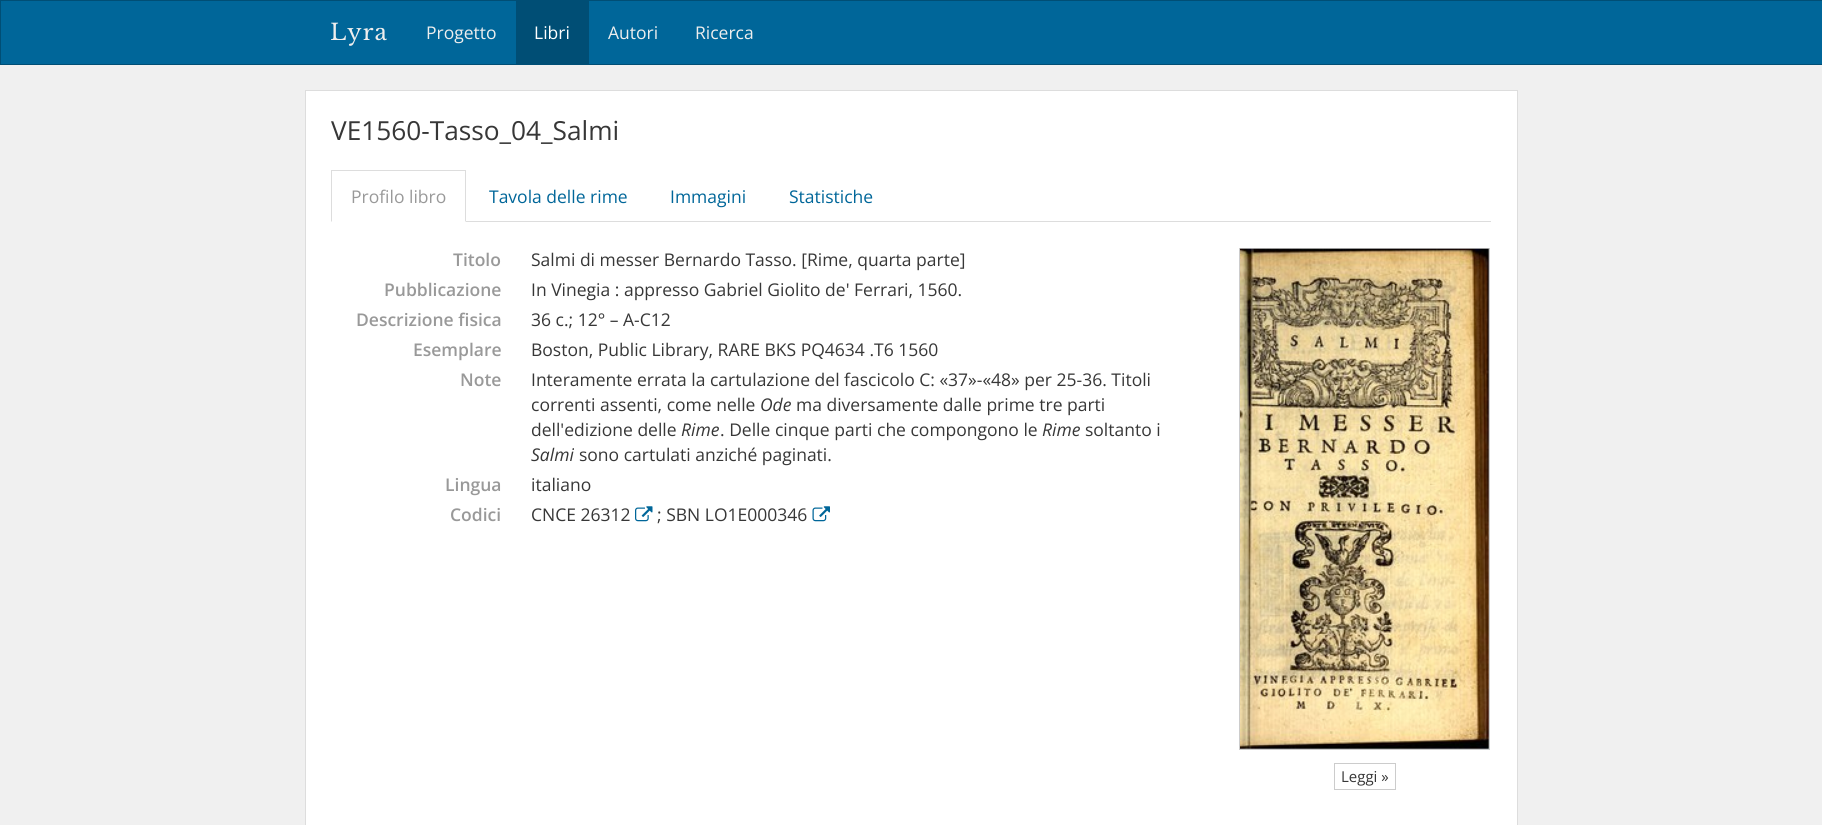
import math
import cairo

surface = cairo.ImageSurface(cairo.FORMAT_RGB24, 1822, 825)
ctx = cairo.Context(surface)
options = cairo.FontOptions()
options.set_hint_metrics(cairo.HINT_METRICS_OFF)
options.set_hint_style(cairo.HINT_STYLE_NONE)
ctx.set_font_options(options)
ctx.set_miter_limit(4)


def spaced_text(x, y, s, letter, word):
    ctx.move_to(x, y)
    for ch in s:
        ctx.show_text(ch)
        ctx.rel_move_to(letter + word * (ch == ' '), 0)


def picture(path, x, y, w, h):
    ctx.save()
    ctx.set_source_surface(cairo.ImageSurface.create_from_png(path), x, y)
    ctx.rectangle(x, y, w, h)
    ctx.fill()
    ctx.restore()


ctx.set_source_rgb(0.941, 0.941, 0.941)
ctx.paint()
ctx.set_source_rgb(0, 0.4, 0.6)
ctx.rectangle(0.5, 0.5, 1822, 64)
ctx.fill_preserve()
ctx.set_source_rgb(0, 0.306, 0.459)
ctx.set_line_width(1)
ctx.stroke()
ctx.select_font_face("Libre Baskerville")
ctx.set_font_size(22.5)
ctx.set_source_rgb(0.933, 0.933, 0.933)
spaced_text(330, 40, "Lyra", 1, 0)
ctx.select_font_face("Open Sans")
ctx.set_font_size(17.5)
ctx.move_to(426, 39)
ctx.show_text("Progetto")
ctx.set_source_rgb(0, 0.306, 0.459)
ctx.rectangle(516, 1, 73, 63)
ctx.fill()
ctx.set_source_rgb(1, 1, 1)
ctx.move_to(534, 39)
ctx.show_text("Libri")
ctx.set_source_rgb(0.933, 0.933, 0.933)
ctx.move_to(608, 39)
ctx.show_text("Autori")
ctx.move_to(695, 39)
ctx.show_text("Ricerca")
ctx.set_source_rgb(1, 1, 1)
ctx.rectangle(305.5, 90.5, 1212, 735)
ctx.fill_preserve()
ctx.set_source_rgb(0.867, 0.867, 0.867)
ctx.stroke()
ctx.set_font_size(26.25)
ctx.set_source_rgb(0.216, 0.216, 0.216)
ctx.move_to(331, 140)
ctx.show_text("VE1560-Tasso_04_Salmi")
ctx.set_source_rgb(0.867, 0.867, 0.867)
ctx.rectangle(466, 221, 1025, 1)
ctx.fill()
ctx.rectangle(331, 170, 135, 1)
ctx.fill()
ctx.new_path()
ctx.move_to(466, 170)
ctx.line_to(466, 222)
ctx.line_to(465, 221)
ctx.line_to(465, 171)
ctx.close_path()
ctx.fill()
ctx.new_path()
ctx.move_to(331, 222)
ctx.line_to(331, 170)
ctx.line_to(332, 171)
ctx.line_to(332, 221)
ctx.close_path()
ctx.fill()
ctx.set_font_size(17.5)
ctx.set_source_rgb(0.6, 0.6, 0.6)
ctx.move_to(351, 203)
ctx.show_text("Profilo libro")
ctx.set_source_rgb(0, 0.4, 0.6)
ctx.move_to(489, 203)
ctx.show_text("Tavola delle rime")
ctx.move_to(670, 203)
ctx.show_text("Immagini")
ctx.move_to(789, 203)
ctx.show_text("Statistiche")
ctx.select_font_face("Open Sans SemiBold")
ctx.set_source_rgb(0.6, 0.6, 0.6)
ctx.move_to(453, 266)
ctx.show_text("Titolo")
ctx.select_font_face("Open Sans")
ctx.set_source_rgb(0.216, 0.216, 0.216)
ctx.move_to(531, 266)
ctx.show_text("Salmi di messer Bernardo Tasso. [Rime, quarta parte]")
ctx.select_font_face("Open Sans SemiBold")
ctx.set_source_rgb(0.6, 0.6, 0.6)
ctx.move_to(384, 296)
ctx.show_text("Pubblicazione")
ctx.select_font_face("Open Sans")
ctx.set_source_rgb(0.216, 0.216, 0.216)
ctx.move_to(531, 296)
ctx.show_text("In Vinegia : appresso Gabriel Giolito de' Ferrari, 1560.")
ctx.select_font_face("Open Sans SemiBold")
ctx.set_source_rgb(0.6, 0.6, 0.6)
ctx.move_to(356, 326)
ctx.show_text("Descrizione fisica")
ctx.select_font_face("Open Sans")
ctx.set_source_rgb(0.216, 0.216, 0.216)
ctx.move_to(531, 326)
ctx.show_text("36 c.; 12° – A-C12")
ctx.select_font_face("Open Sans SemiBold")
ctx.set_source_rgb(0.6, 0.6, 0.6)
ctx.move_to(413, 356)
ctx.show_text("Esemplare")
ctx.select_font_face("Open Sans")
ctx.set_source_rgb(0.216, 0.216, 0.216)
ctx.move_to(531, 356)
ctx.show_text("Boston, Public Library, RARE BKS PQ4634 .T6 1560")
ctx.select_font_face("Open Sans SemiBold")
ctx.set_source_rgb(0.6, 0.6, 0.6)
ctx.move_to(460, 386)
ctx.show_text("Note")
ctx.select_font_face("Open Sans")
ctx.set_source_rgb(0.216, 0.216, 0.216)
ctx.move_to(531, 386)
ctx.show_text("Interamente errata la cartulazione del fascicolo C: «37»-«48» per 25-36. Titoli")
ctx.move_to(531, 411)
ctx.show_text("correnti assenti, come nelle")
ctx.select_font_face("Open Sans", cairo.FONT_SLANT_ITALIC)
ctx.move_to(760, 411)
ctx.show_text("Ode")
ctx.select_font_face("Open Sans")
ctx.move_to(796, 411)
ctx.show_text("ma diversamente dalle prime tre parti")
ctx.move_to(531, 436)
ctx.show_text("dell'edizione delle")
ctx.select_font_face("Open Sans", cairo.FONT_SLANT_ITALIC)
ctx.move_to(681, 436)
ctx.show_text("Rime")
ctx.select_font_face("Open Sans")
ctx.move_to(720, 436)
ctx.show_text(". Delle cinque parti che compongono le")
ctx.select_font_face("Open Sans", cairo.FONT_SLANT_ITALIC)
ctx.move_to(1042, 436)
ctx.show_text("Rime")
ctx.select_font_face("Open Sans")
ctx.move_to(1085, 436)
ctx.show_text("soltanto i")
ctx.select_font_face("Open Sans", cairo.FONT_SLANT_ITALIC)
ctx.move_to(531, 461)
ctx.show_text("Salmi")
ctx.select_font_face("Open Sans")
ctx.move_to(579, 461)
ctx.show_text("sono cartulati anziché paginati.")
ctx.select_font_face("Open Sans SemiBold")
ctx.set_source_rgb(0.6, 0.6, 0.6)
ctx.move_to(445, 491)
ctx.show_text("Lingua")
ctx.select_font_face("Open Sans")
ctx.set_source_rgb(0.216, 0.216, 0.216)
ctx.move_to(531, 491)
ctx.show_text("italiano")
ctx.select_font_face("Open Sans SemiBold")
ctx.set_source_rgb(0.6, 0.6, 0.6)
ctx.move_to(450, 521)
ctx.show_text("Codici")
ctx.select_font_face("Open Sans")
ctx.set_source_rgb(0.216, 0.216, 0.216)
ctx.move_to(531, 521)
ctx.show_text("CNCE 26312")
picture("img1.png", 635, 506, 18, 16)
ctx.move_to(657, 521)
ctx.show_text("; SBN LO1E000346")
picture("img2.png", 812, 506, 18, 16)
ctx.rectangle(1239.5, 248.5, 250, 501)
ctx.set_source_rgb(0.8, 0.8, 0.8)
ctx.stroke()
picture("img3.png", 1240, 248, 249, 501)
ctx.rectangle(1334.5, 763.5, 61, 26)
ctx.stroke()
ctx.set_font_size(15)
ctx.set_source_rgb(0.216, 0.216, 0.216)
ctx.move_to(1341, 782)
ctx.show_text("Leggi »")
surface.write_to_png("page.png")
